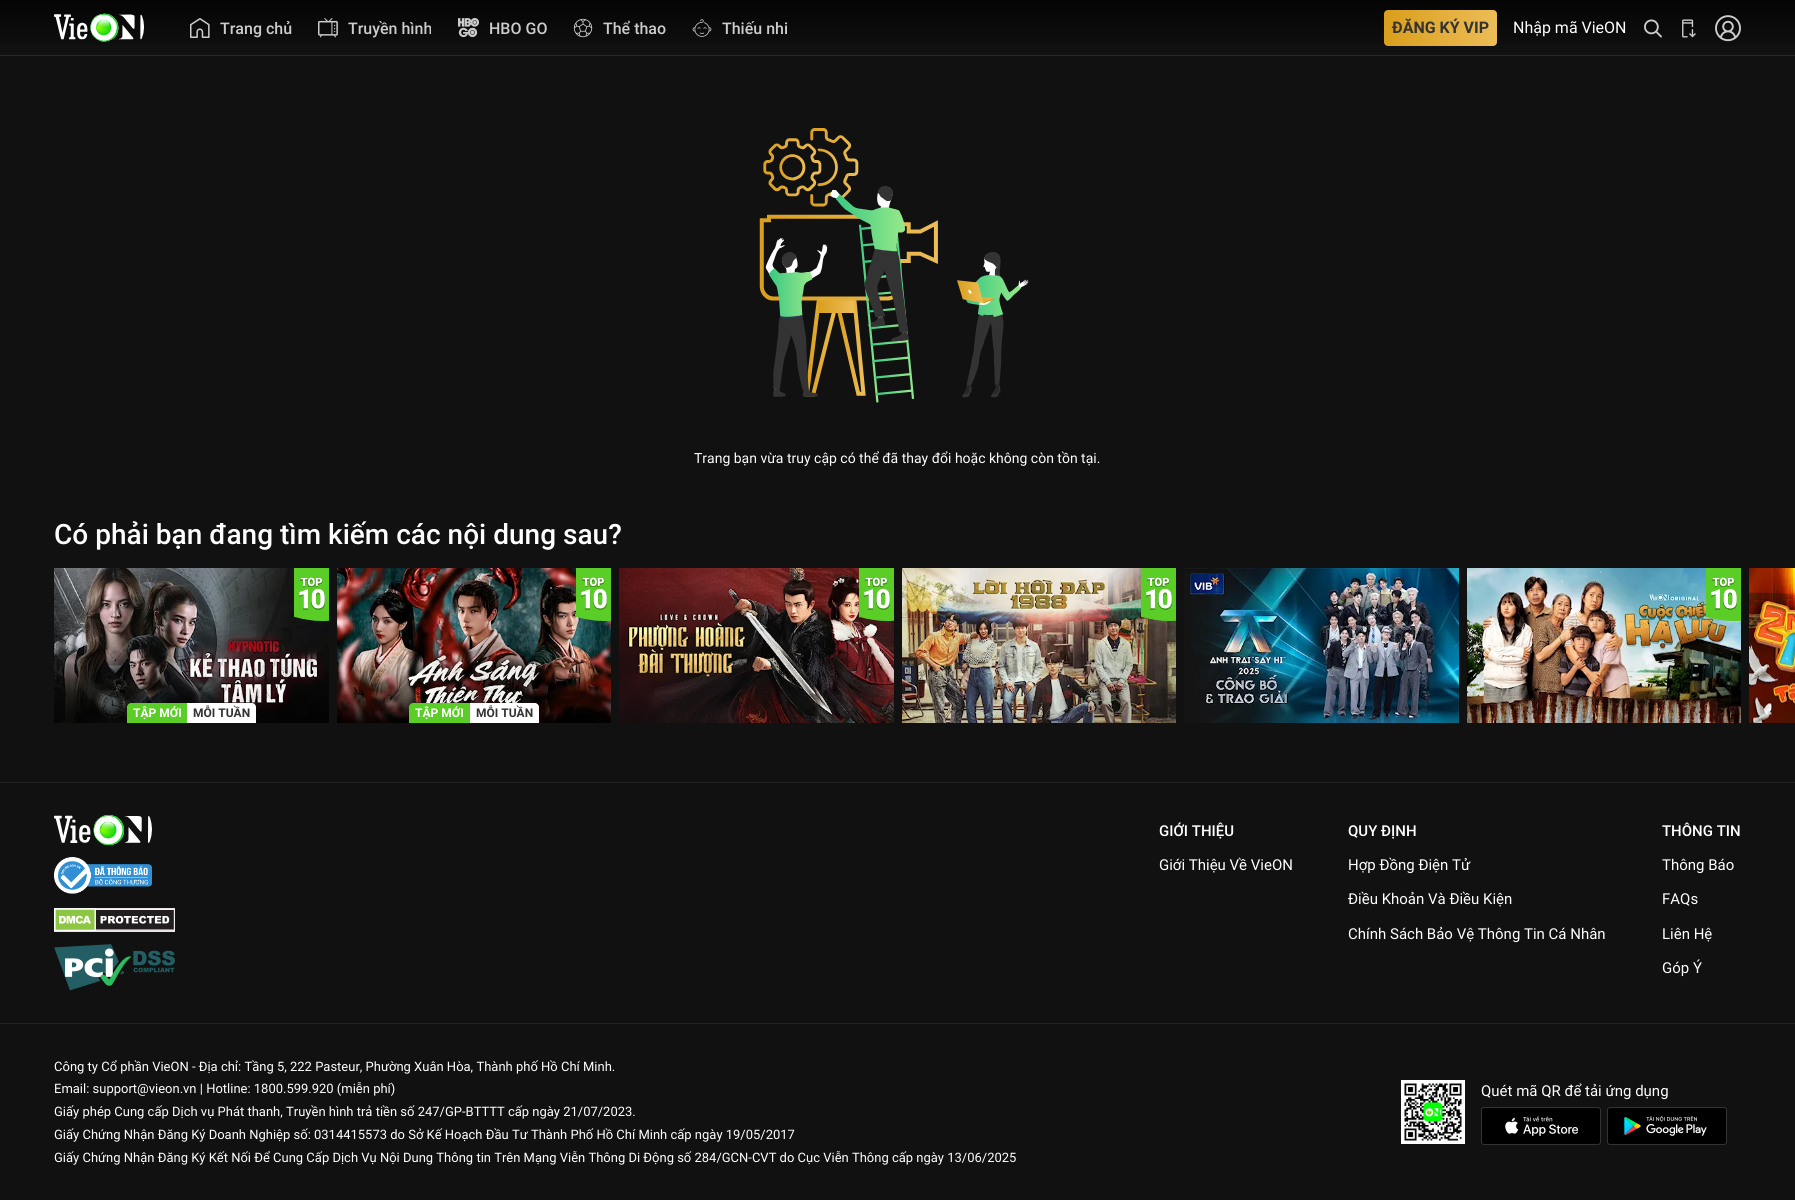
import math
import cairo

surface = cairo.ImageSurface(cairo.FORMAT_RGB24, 1795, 1200)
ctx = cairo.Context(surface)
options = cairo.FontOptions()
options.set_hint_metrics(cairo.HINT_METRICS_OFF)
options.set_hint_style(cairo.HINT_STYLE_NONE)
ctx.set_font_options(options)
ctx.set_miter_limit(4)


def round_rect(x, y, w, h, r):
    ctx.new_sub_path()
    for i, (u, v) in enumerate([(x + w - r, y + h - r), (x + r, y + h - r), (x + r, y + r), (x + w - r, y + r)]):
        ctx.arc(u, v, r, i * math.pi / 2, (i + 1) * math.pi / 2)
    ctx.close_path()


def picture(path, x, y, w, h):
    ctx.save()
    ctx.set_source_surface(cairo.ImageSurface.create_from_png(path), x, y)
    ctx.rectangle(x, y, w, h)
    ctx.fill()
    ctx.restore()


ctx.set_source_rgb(0.067, 0.067, 0.067)
ctx.paint()
gradient = cairo.LinearGradient(898, 56, 898, 0)
gradient.add_color_stop_rgba(0, 0.067, 0.067, 0.067, 1)
gradient.add_color_stop_rgba(1, 0.016, 0.016, 0.016, 1)
ctx.set_source(gradient)
ctx.rectangle(0, 0, 1795, 45)
ctx.fill()
ctx.set_source_rgb(0.161, 0.161, 0.161)
ctx.rectangle(0, 55, 1795, 1)
ctx.fill()
picture("img1.png", 54, 13, 90, 29)
picture("img2.png", 190, 18, 20, 20)
ctx.select_font_face("Roboto Medium")
ctx.set_font_size(16)
ctx.set_source_rgb(0.8, 0.8, 0.8)
ctx.move_to(220, 34)
ctx.show_text("Trang chủ")
picture("img3.png", 318, 18, 20, 20)
ctx.move_to(348, 34)
ctx.show_text("Truyền hình")
picture("img4.png", 458, 18, 21, 20)
ctx.move_to(489, 34)
ctx.show_text("HBO GO")
picture("img5.png", 573, 18, 20, 20)
ctx.move_to(603, 34)
ctx.show_text("Thể thao")
picture("img6.png", 692, 19, 20, 18)
ctx.move_to(722, 34)
ctx.show_text("Thiếu nhi")
gradient = cairo.LinearGradient(1384, 28, 1497, 28)
gradient.add_color_stop_rgba(0, 0.855, 0.62, 0.11, 1)
gradient.add_color_stop_rgba(1, 0.925, 0.741, 0.341, 1)
ctx.set_source(gradient)
round_rect(1384, 10, 113, 36, 4)
ctx.fill()
ctx.select_font_face("Roboto", cairo.FONT_SLANT_NORMAL, cairo.FONT_WEIGHT_BOLD)
ctx.set_source_rgb(0.2, 0.2, 0.2)
ctx.move_to(1392, 33)
ctx.show_text("ĐĂNG KÝ VIP")
ctx.select_font_face("Roboto")
ctx.set_source_rgb(1, 1, 1)
ctx.move_to(1513, 33)
ctx.show_text("Nhập mã VieON")
picture("img7.png", 1644, 19, 18, 19)
picture("img8.png", 1682, 19, 14, 19)
picture("img9.png", 1715, 15, 26, 27)
picture("img10.png", 759, 128, 270, 275)
ctx.set_font_size(14)
ctx.move_to(694, 463)
ctx.show_text("Trang bạn vừa truy cập có thể đã thay đổi hoặc không còn tồn tại.")
ctx.select_font_face("Roboto Medium")
ctx.set_font_size(28)
ctx.move_to(54, 544)
ctx.show_text("Có phải bạn đang tìm kiếm các nội dung sau?")
picture("img11.png", 54, 568, 275, 155)
picture("img12.png", 294, 568, 35, 53)
ctx.set_source_rgb(0.357, 0.804, 0.153)
ctx.new_path()
ctx.move_to(131, 703)
ctx.line_to(187, 703)
ctx.line_to(187, 723)
ctx.line_to(127, 723)
ctx.line_to(127, 707)
ctx.curve_to(127, 705, 129, 703, 131, 703)
ctx.close_path()
ctx.fill()
ctx.select_font_face("Roboto", cairo.FONT_SLANT_NORMAL, cairo.FONT_WEIGHT_BOLD)
ctx.set_font_size(12)
ctx.set_source_rgb(1, 1, 1)
ctx.move_to(133, 717)
ctx.show_text("TẬP MỚI")
ctx.new_path()
ctx.move_to(187, 703)
ctx.line_to(252, 703)
ctx.curve_to(254, 703, 256, 705, 256, 707)
ctx.line_to(256, 723)
ctx.line_to(187, 723)
ctx.close_path()
ctx.fill()
ctx.set_source_rgb(0.2, 0.2, 0.2)
ctx.move_to(193, 717)
ctx.show_text("MỖI TUẦN")
picture("img13.png", 337, 568, 274, 155)
picture("img14.png", 576, 568, 35, 53)
ctx.set_source_rgb(0.357, 0.804, 0.153)
ctx.new_path()
ctx.move_to(413, 703)
ctx.line_to(470, 703)
ctx.line_to(470, 723)
ctx.line_to(409, 723)
ctx.line_to(409, 707)
ctx.curve_to(409, 705, 411, 703, 413, 703)
ctx.close_path()
ctx.fill()
ctx.set_source_rgb(1, 1, 1)
ctx.move_to(415, 717)
ctx.show_text("TẬP MỚI")
ctx.new_path()
ctx.move_to(470, 703)
ctx.line_to(535, 703)
ctx.curve_to(537, 703, 539, 705, 539, 707)
ctx.line_to(539, 723)
ctx.line_to(470, 723)
ctx.close_path()
ctx.fill()
ctx.set_source_rgb(0.2, 0.2, 0.2)
ctx.move_to(476, 717)
ctx.show_text("MỖI TUẦN")
picture("img15.png", 619, 568, 275, 155)
picture("img16.png", 859, 568, 35, 53)
picture("img17.png", 902, 568, 274, 155)
picture("img18.png", 1141, 568, 35, 53)
picture("img19.png", 1184, 568, 275, 155)
picture("img20.png", 1467, 568, 274, 155)
picture("img21.png", 1706, 568, 35, 53)
picture("img22.png", 1749, 568, 46, 155)
ctx.set_source_rgb(0.133, 0.133, 0.133)
ctx.rectangle(0, 782, 1795, 1)
ctx.fill()
picture("img23.png", 54, 815, 98, 30)
picture("img24.png", 54, 857, 98, 37)
ctx.set_source_rgb(0.902, 0.902, 0.902)
ctx.rectangle(54, 908, 121, 24)
ctx.fill()
picture("img25.png", 54, 908, 121, 23)
picture("img26.png", 54, 944, 121, 47)
ctx.select_font_face("Roboto Medium")
ctx.set_font_size(15)
ctx.set_source_rgb(1, 1, 1)
ctx.move_to(1159, 836)
ctx.show_text("GIỚI THIỆU")
ctx.select_font_face("Roboto")
ctx.move_to(1159, 870)
ctx.show_text("Giới Thiệu Về VieON")
ctx.select_font_face("Roboto Medium")
ctx.move_to(1348, 836)
ctx.show_text("QUY ĐỊNH")
ctx.select_font_face("Roboto")
ctx.move_to(1348, 870)
ctx.show_text("Hợp Đồng Điện Tử")
ctx.move_to(1348, 904)
ctx.show_text("Điều Khoản Và Điều Kiện")
ctx.move_to(1348, 939)
ctx.show_text("Chính Sách Bảo Vệ Thông Tin Cá Nhân")
ctx.select_font_face("Roboto Medium")
ctx.move_to(1662, 836)
ctx.show_text("THÔNG TIN")
ctx.select_font_face("Roboto")
ctx.move_to(1662, 870)
ctx.show_text("Thông Báo")
ctx.move_to(1662, 904)
ctx.show_text("FAQs")
ctx.move_to(1662, 939)
ctx.show_text("Liên Hệ")
ctx.move_to(1662, 973)
ctx.show_text("Góp Ý")
ctx.set_source_rgb(0.133, 0.133, 0.133)
ctx.rectangle(0, 1023, 1795, 1)
ctx.fill()
ctx.set_font_size(13)
ctx.set_source_rgb(1, 1, 1)
ctx.move_to(54, 1071)
ctx.show_text("Công ty Cổ phần VieON - Địa chỉ: Tầng 5, 222 Pasteur, Phường Xuân Hòa, Thành phố Hồ Chí Minh.")
ctx.move_to(54, 1093)
ctx.show_text("Email: support@vieon.vn | Hotline: 1800.599.920 (miễn phí)")
ctx.move_to(54, 1116)
ctx.show_text("Giấy phép Cung cấp Dịch vụ Phát thanh, Truyền hình trả tiền số 247/GP-BTTTT cấp ngày 21/07/2023.")
ctx.move_to(54, 1139)
ctx.show_text("Giấy Chứng Nhận Đăng Ký Doanh Nghiệp số: 0314415573 do Sở Kế Hoạch Đầu Tư Thành Phố Hồ Chí Minh cấp ngày 19/05/2017")
ctx.move_to(54, 1162)
ctx.show_text("Giấy Chứng Nhận Đăng Ký Kết Nối Để Cung Cấp Dịch Vụ Nội Dung Thông tin Trên Mạng Viễn Thông Di Động số 284/GCN-CVT do Cục Viễn Thông cấp ngày 13/06/2025")
picture("img27.png", 1401, 1080, 64, 64)
ctx.set_font_size(15)
ctx.move_to(1481, 1096)
ctx.show_text("Quét mã QR để tải ứng dụng")
ctx.set_source_rgb(0, 0, 0)
round_rect(1481.5, 1107.5, 119, 37, 2.5)
ctx.fill_preserve()
ctx.set_source_rgb(0.2, 0.2, 0.2)
ctx.set_line_width(1)
ctx.stroke()
picture("img28.png", 1505, 1116, 74, 20)
ctx.set_source_rgb(0, 0, 0)
round_rect(1607.5, 1107.5, 119, 37, 2.5)
ctx.fill_preserve()
ctx.set_source_rgb(0.2, 0.2, 0.2)
ctx.stroke()
picture("img29.png", 1624, 1115, 83, 21)
surface.write_to_png("page.png")
